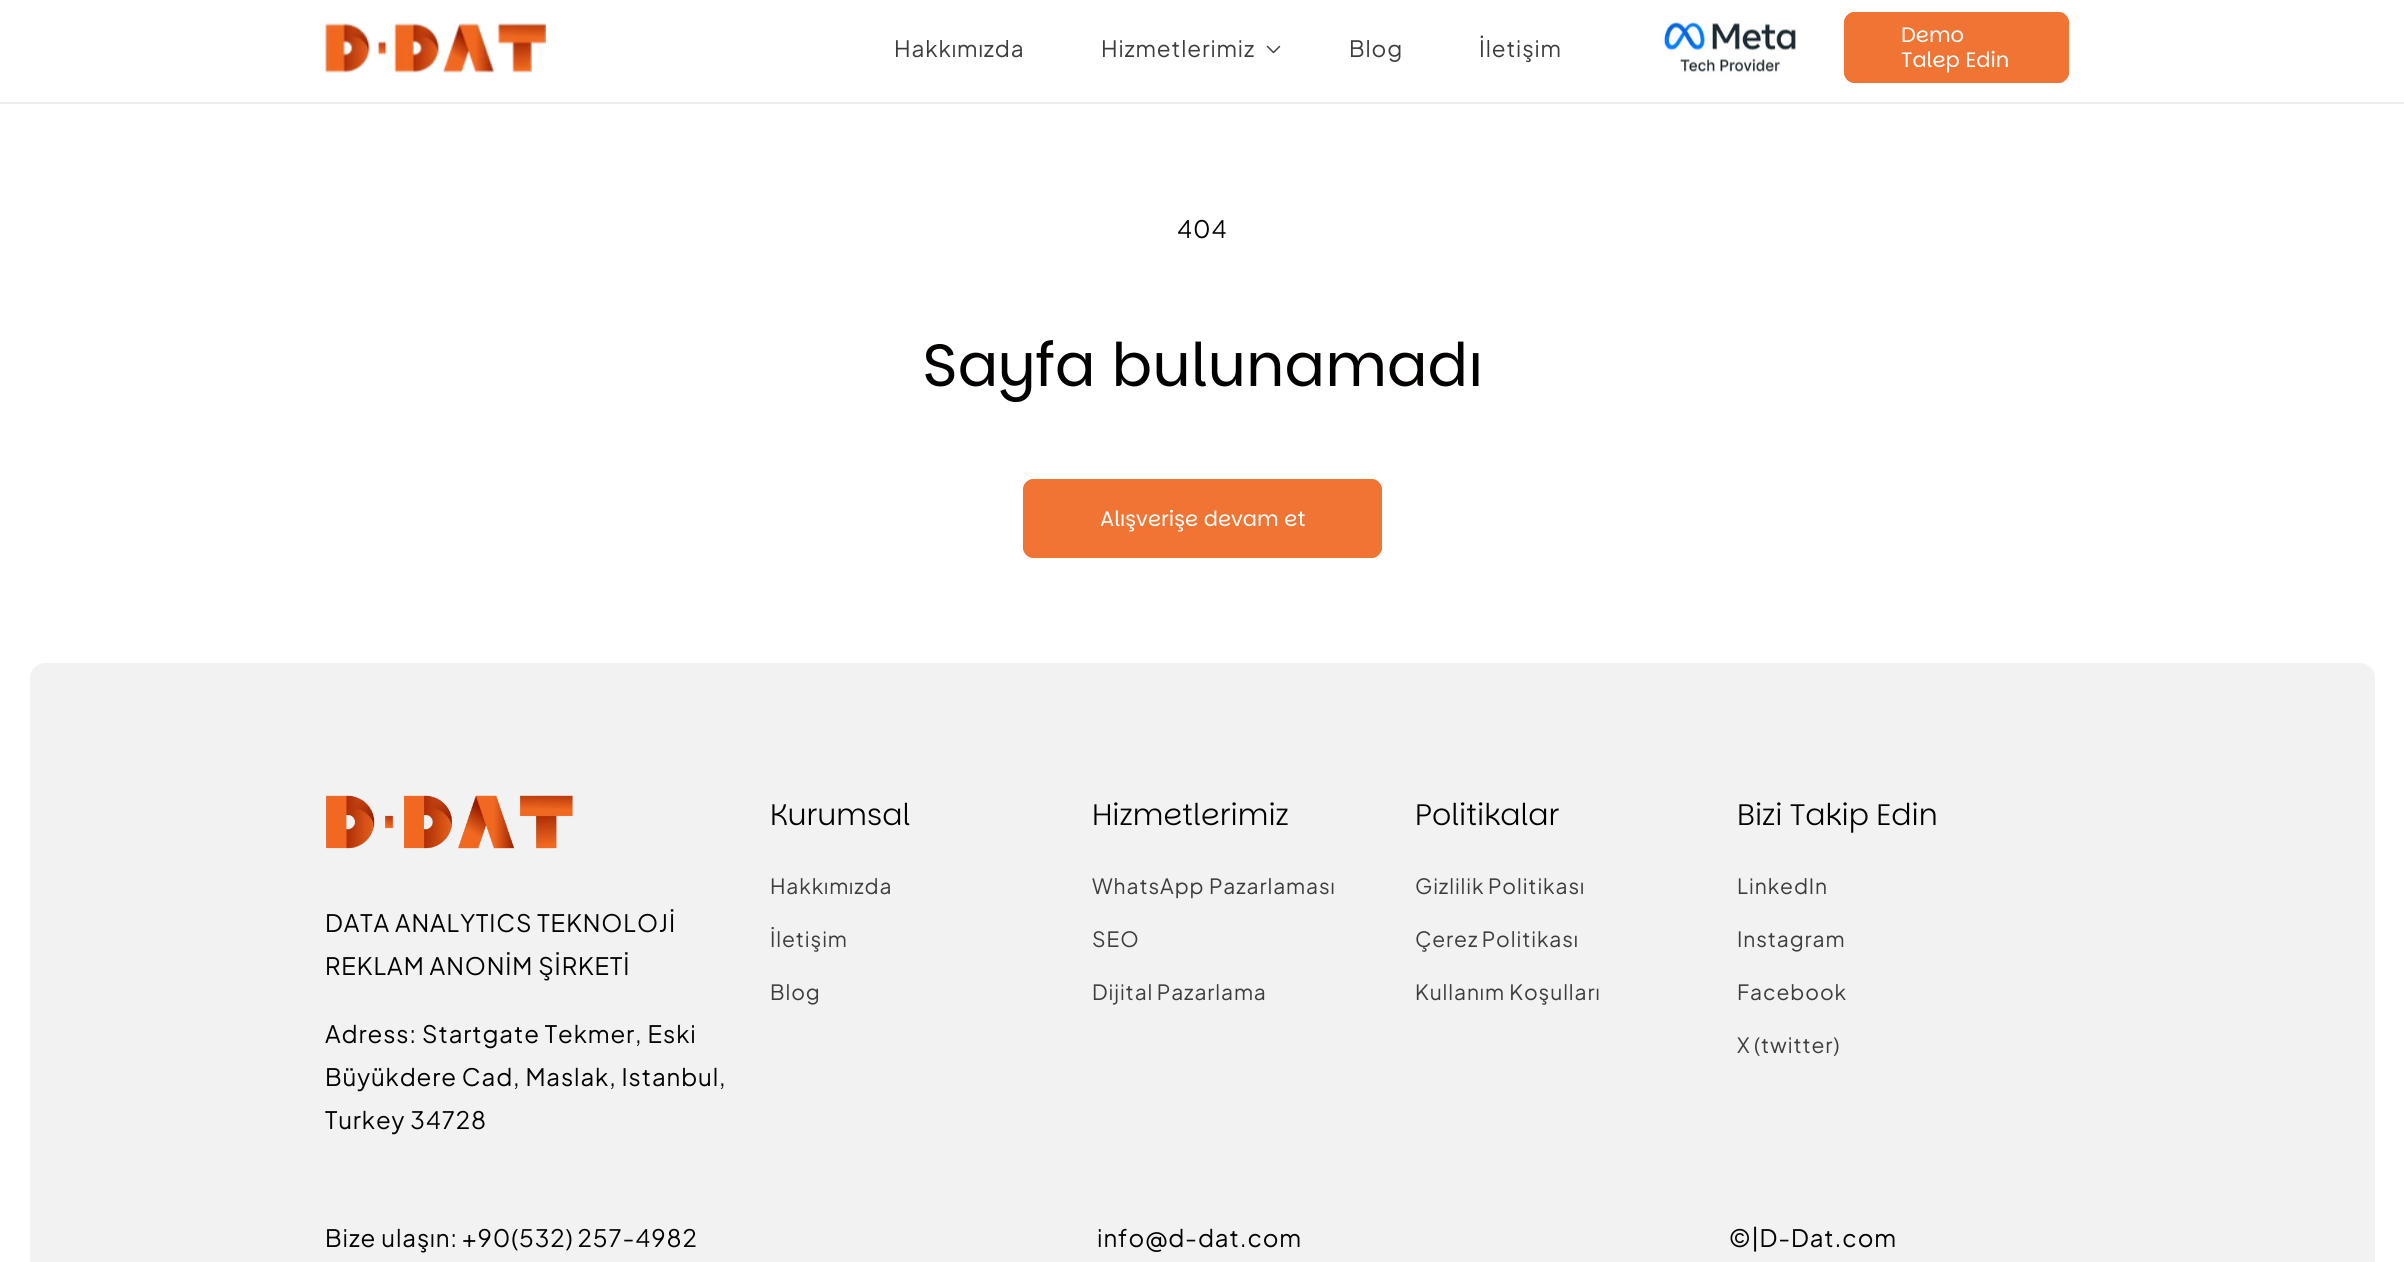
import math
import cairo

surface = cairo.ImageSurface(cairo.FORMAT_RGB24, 2404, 1262)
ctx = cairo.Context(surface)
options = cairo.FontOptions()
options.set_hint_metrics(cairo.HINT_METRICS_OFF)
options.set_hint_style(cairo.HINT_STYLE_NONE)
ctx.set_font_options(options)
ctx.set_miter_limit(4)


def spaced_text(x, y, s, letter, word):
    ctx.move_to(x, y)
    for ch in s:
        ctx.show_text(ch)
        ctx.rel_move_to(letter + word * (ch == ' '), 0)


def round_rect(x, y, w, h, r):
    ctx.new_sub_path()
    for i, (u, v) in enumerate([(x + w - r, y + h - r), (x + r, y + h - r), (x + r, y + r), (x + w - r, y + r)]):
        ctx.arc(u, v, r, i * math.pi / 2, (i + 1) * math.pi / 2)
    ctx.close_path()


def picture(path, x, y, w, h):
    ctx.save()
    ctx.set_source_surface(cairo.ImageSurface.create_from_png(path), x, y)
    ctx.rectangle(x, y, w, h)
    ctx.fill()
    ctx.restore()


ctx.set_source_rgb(1, 1, 1)
ctx.paint()
ctx.set_source_rgb(0.922, 0.922, 0.922)
ctx.rectangle(0, 102, 2404, 2)
ctx.fill()
picture("img1.png", 325, 23, 221, 50)
ctx.select_font_face("Plus Jakarta Sans")
ctx.set_font_size(22.5)
ctx.set_source_rgb(0.243, 0.239, 0.239)
spaced_text(894, 57, "Hakkımızda", 0.9, 0)
spaced_text(1101, 57, "Hizmetlerimiz", 0.9, 0)
picture("img2.png", 1266, 45, 15, 9)
spaced_text(1349, 57, "Blog", 0.9, 0)
spaced_text(1479, 57, "İletişim", 0.9, 0)
picture("img3.png", 1659, 21, 137, 55)
ctx.set_source_rgb(0.941, 0.455, 0.2)
round_rect(1844, 12, 225, 71, 11)
ctx.fill()
round_rect(1845, 13, 223, 69, 10)
ctx.stroke()
ctx.select_font_face("Parkinsans")
ctx.set_font_size(21)
ctx.set_source_rgb(1, 1, 1)
ctx.move_to(1901, 42)
ctx.show_text("Demo")
ctx.move_to(1901, 67)
ctx.show_text("Talep Edin")
ctx.select_font_face("Plus Jakarta Sans")
ctx.set_font_size(24)
ctx.set_source_rgb(0.012, 0, 0)
spaced_text(1177, 238, "404", 0.9, 0)
ctx.select_font_face("Parkinsans")
ctx.set_font_size(60)
ctx.move_to(922, 386)
ctx.show_text("Sayfa bulunamadı")
ctx.set_source_rgb(0.941, 0.455, 0.2)
round_rect(1023, 479, 359, 79, 11)
ctx.fill()
round_rect(1024, 480, 357, 77, 10)
ctx.stroke()
ctx.set_font_size(21)
ctx.set_source_rgb(1, 1, 1)
ctx.move_to(1100, 526)
ctx.show_text("Alışverişe devam et")
ctx.set_source_rgb(0.949, 0.949, 0.949)
round_rect(30, 663, 2345, 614, 15)
ctx.fill()
picture("img4.png", 325, 795, 248, 54)
ctx.select_font_face("Plus Jakarta Sans")
ctx.set_font_size(24)
ctx.set_source_rgb(0.012, 0, 0)
spaced_text(325, 932, "DATA ANALYTICS TEKNOLOJİ", 0.9, 0)
spaced_text(325, 975, "REKLAM ANONİM ŞİRKETİ", 0.9, 0)
spaced_text(325, 1043, "Adress: Startgate Tekmer, Eski", 0.9, 0)
spaced_text(325, 1086, "Büyükdere Cad, Maslak, Istanbul,", 0.9, 0)
spaced_text(325, 1129, "Turkey 34728", 0.9, 0)
ctx.select_font_face("Parkinsans Light")
ctx.set_font_size(30)
ctx.move_to(770, 825)
ctx.show_text("Kurumsal")
ctx.select_font_face("Plus Jakarta Sans")
ctx.set_font_size(21)
ctx.set_source_rgb(0.243, 0.239, 0.239)
spaced_text(770, 894, "Hakkımızda", 0.9, 0)
spaced_text(770, 947, "İletişim", 0.9, 0)
spaced_text(770, 1000, "Blog", 0.9, 0)
ctx.select_font_face("Parkinsans Light")
ctx.set_font_size(30)
ctx.set_source_rgb(0.012, 0, 0)
ctx.move_to(1092, 825)
ctx.show_text("Hizmetlerimiz")
ctx.select_font_face("Plus Jakarta Sans")
ctx.set_font_size(21)
ctx.set_source_rgb(0.243, 0.239, 0.239)
spaced_text(1092, 894, "WhatsApp Pazarlaması", 0.9, 0)
spaced_text(1092, 947, "SEO", 0.9, 0)
spaced_text(1092, 1000, "Dijital Pazarlama", 0.9, -1)
ctx.select_font_face("Parkinsans Light")
ctx.set_font_size(30)
ctx.set_source_rgb(0.012, 0, 0)
ctx.move_to(1415, 825)
ctx.show_text("Politikalar")
ctx.select_font_face("Plus Jakarta Sans")
ctx.set_font_size(21)
ctx.set_source_rgb(0.243, 0.239, 0.239)
spaced_text(1415, 894, "Gizlilik Politikası", 0.9, -1)
spaced_text(1415, 947, "Çerez Politikası", 0.9, -1)
spaced_text(1415, 1000, "Kullanım Koşulları", 0.9, 0)
ctx.select_font_face("Parkinsans Light")
ctx.set_font_size(30)
ctx.set_source_rgb(0.012, 0, 0)
spaced_text(1737, 825, "Bizi Takip Edin", 0, -1)
ctx.select_font_face("Plus Jakarta Sans")
ctx.set_font_size(21)
ctx.set_source_rgb(0.243, 0.239, 0.239)
spaced_text(1737, 894, "LinkedIn", 0.9, 0)
spaced_text(1737, 947, "Instagram", 0.9, 0)
spaced_text(1737, 1000, "Facebook", 0.9, 0)
spaced_text(1737, 1053, "X (twitter)", 0.9, -1)
ctx.set_font_size(24)
ctx.set_source_rgb(0.012, 0, 0)
spaced_text(325, 1247, "Bize ulaşın:", 0.9, 0)
spaced_text(462, 1247, "+90(532) 257-4982", 0.9, -1)
spaced_text(1097, 1247, "info@d-dat.com", 0.9, 0)
spaced_text(1729, 1247, "©|D-Dat.com", 0.9, 0)
surface.write_to_png("page.png")
